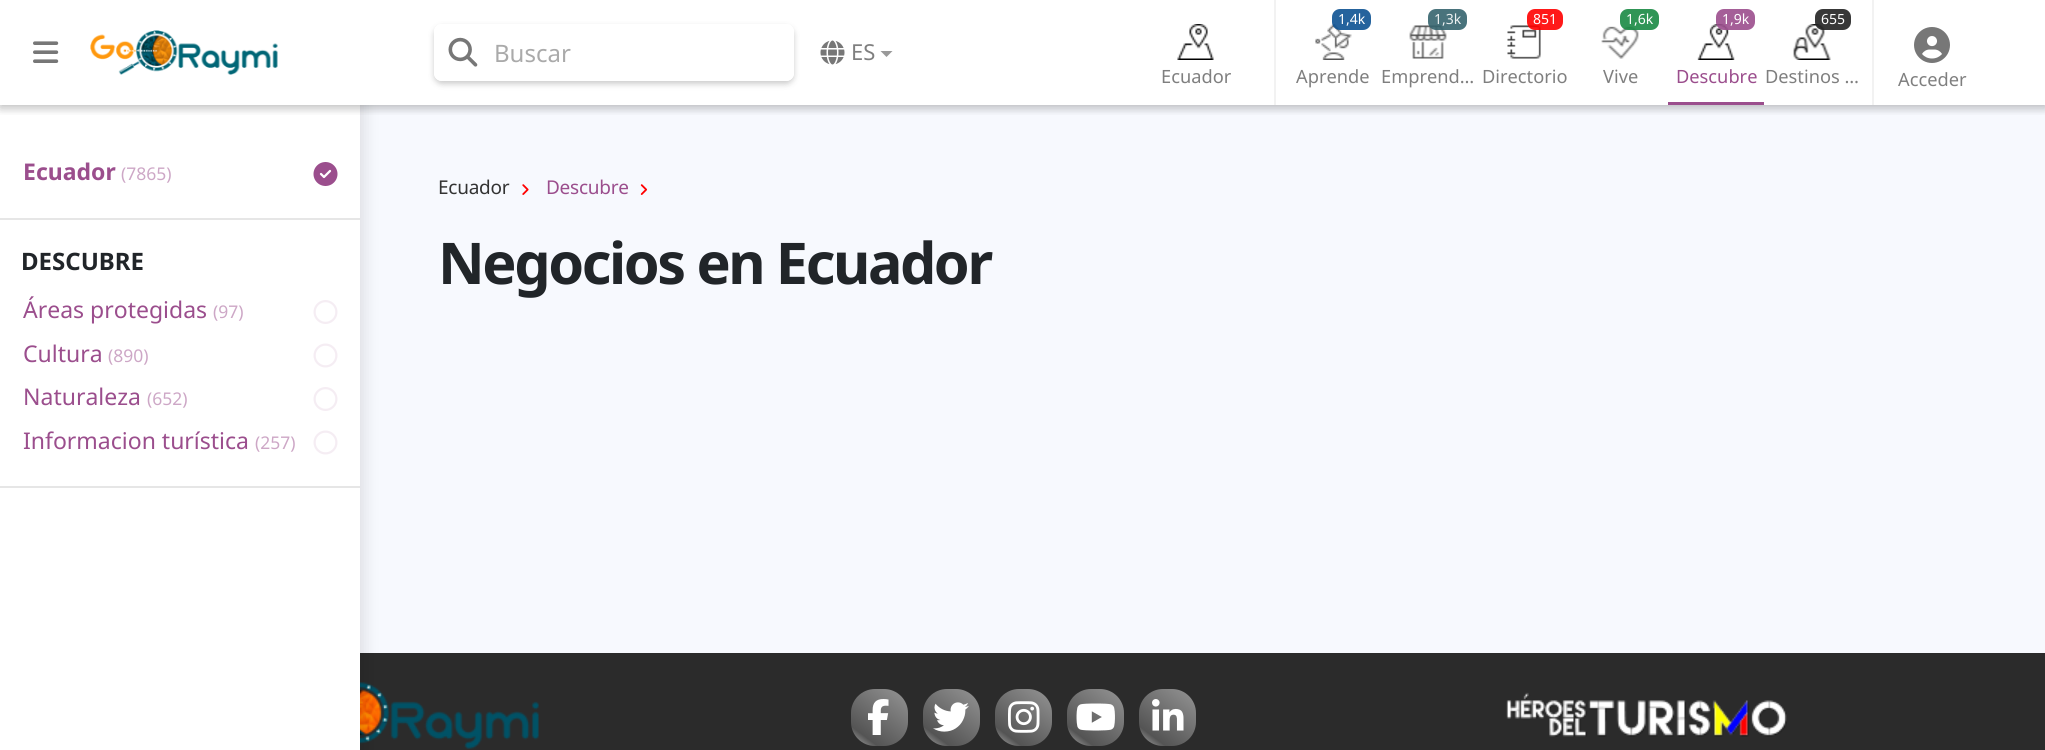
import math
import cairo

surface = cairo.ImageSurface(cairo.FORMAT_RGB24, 2045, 750)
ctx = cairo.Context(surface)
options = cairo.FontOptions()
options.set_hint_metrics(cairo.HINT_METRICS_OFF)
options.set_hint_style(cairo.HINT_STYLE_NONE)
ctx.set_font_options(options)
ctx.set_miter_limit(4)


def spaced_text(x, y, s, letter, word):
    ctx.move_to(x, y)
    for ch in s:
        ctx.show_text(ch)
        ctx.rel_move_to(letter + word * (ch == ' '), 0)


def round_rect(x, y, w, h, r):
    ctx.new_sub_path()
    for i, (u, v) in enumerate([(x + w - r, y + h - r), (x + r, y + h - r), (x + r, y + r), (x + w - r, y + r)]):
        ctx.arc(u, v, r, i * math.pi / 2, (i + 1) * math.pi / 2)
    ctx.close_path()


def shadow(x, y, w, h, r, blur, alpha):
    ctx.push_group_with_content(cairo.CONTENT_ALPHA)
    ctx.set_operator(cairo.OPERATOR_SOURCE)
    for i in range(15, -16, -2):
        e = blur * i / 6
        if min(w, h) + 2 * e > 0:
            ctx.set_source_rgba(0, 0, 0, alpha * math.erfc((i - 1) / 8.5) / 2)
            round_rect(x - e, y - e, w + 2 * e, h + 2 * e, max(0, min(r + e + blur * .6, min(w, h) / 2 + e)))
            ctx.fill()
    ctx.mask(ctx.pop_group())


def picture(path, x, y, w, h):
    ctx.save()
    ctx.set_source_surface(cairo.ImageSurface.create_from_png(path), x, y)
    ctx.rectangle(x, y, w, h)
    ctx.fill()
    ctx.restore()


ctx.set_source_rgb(0.965, 0.976, 0.996)
ctx.paint()
ctx.set_source_rgb(0.169, 0.169, 0.169)
ctx.rectangle(360, 653, 1685, 97)
ctx.fill()
picture("img18.png", 360, 682, 179, 67)
ctx.set_source_rgb(0, 0, 0)
shadow(5, 5, 360, 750, 0, 7.5, 0.1)
ctx.set_source_rgb(1, 1, 1)
ctx.rectangle(0, 0, 360, 750)
ctx.fill()
ctx.save()
ctx.rectangle(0, 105, 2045, 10)
ctx.clip()
ctx.set_source_rgb(0, 0, 0)
shadow(0, 3, 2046, 105, 0, 7.5, 0.12)
ctx.restore()
ctx.save()
ctx.rectangle(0, 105, 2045, 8)
ctx.clip()
ctx.set_source_rgb(0, 0, 0)
shadow(0, 3, 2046, 105, 0, 4, 0.16)
ctx.restore()
ctx.set_source_rgba(1, 1, 1, 0.99)
ctx.rectangle(360, 0, 1685, 105)
ctx.fill()
picture("img1.png", 33, 41, 26, 22)
picture("img2.png", 90, 30, 188, 45)
ctx.save()
ctx.set_fill_rule(cairo.FILL_RULE_EVEN_ODD)
ctx.new_path()
ctx.move_to(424, 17)
ctx.line_to(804, 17)
ctx.line_to(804, 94)
ctx.line_to(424, 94)
ctx.close_path()
ctx.move_to(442, 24)
ctx.line_to(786, 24)
ctx.curve_to(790.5, 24, 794, 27.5, 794, 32)
ctx.line_to(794, 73)
ctx.curve_to(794, 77.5, 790.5, 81, 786, 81)
ctx.line_to(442, 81)
ctx.curve_to(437.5, 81, 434, 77.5, 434, 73)
ctx.line_to(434, 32)
ctx.curve_to(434, 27.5, 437.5, 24, 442, 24)
ctx.close_path()
ctx.clip()
ctx.set_source_rgb(0, 0, 0)
shadow(434, 27, 360, 57, 8, 3, 0.2)
ctx.restore()
ctx.set_source_rgba(1, 1, 1, 0.9)
round_rect(434, 24, 360, 57, 8)
ctx.fill()
picture("img3.png", 448, 37, 30, 30)
ctx.select_font_face("Noto Sans")
ctx.set_font_size(24)
ctx.set_source_rgb(0.667, 0.667, 0.667)
ctx.move_to(494, 62)
ctx.show_text("Buscar")
picture("img4.png", 820, 40, 25, 25)
ctx.set_font_size(22)
ctx.set_source_rgb(0.498, 0.498, 0.498)
ctx.move_to(851, 60)
ctx.show_text("ES")
ctx.set_source_rgb(0.6, 0.6, 0.6)
ctx.new_path()
ctx.move_to(880.5, 51)
ctx.line_to(892.5, 51)
ctx.line_to(886.5, 57)
ctx.close_path()
ctx.fill()
ctx.set_source_rgb(0.949, 0.949, 0.949)
ctx.rectangle(1274, 0, 2, 105)
ctx.fill()
picture("img5.png", 1177, 24, 37, 36)
ctx.set_font_size(18.25)
ctx.set_source_rgb(0.498, 0.498, 0.498)
ctx.move_to(1161, 83)
ctx.show_text("Ecuador")
picture("img6.png", 1315, 24, 37, 36)
ctx.set_source_rgba(0.055, 0.325, 0.573, 0.9)
round_rect(1332, 9, 39, 21, 8)
ctx.fill()
ctx.set_font_size(14)
ctx.set_source_rgb(1, 1, 1)
ctx.move_to(1338, 24)
ctx.show_text("1,4k")
ctx.set_font_size(18.25)
ctx.set_source_rgb(0.498, 0.498, 0.498)
ctx.move_to(1296, 83)
ctx.show_text("Aprende")
picture("img7.png", 1409, 25, 38, 34)
ctx.set_source_rgba(0.212, 0.392, 0.431, 0.9)
round_rect(1428, 9, 39, 21, 8)
ctx.fill()
ctx.set_font_size(14)
ctx.set_source_rgb(0.929, 0.945, 0.949)
ctx.move_to(1434, 24)
ctx.show_text("1,3k")
ctx.set_font_size(18.25)
ctx.set_source_rgb(0.498, 0.498, 0.498)
ctx.move_to(1381, 83)
ctx.show_text("Emprend…")
picture("img8.png", 1507, 25, 34, 34)
ctx.set_source_rgba(1, 0, 0, 0.9)
round_rect(1527, 9, 36, 21, 8)
ctx.fill()
ctx.set_font_size(14)
ctx.set_source_rgb(1, 1, 1)
ctx.move_to(1533, 24)
ctx.show_text("851")
ctx.set_font_size(18.25)
ctx.set_source_rgb(0.498, 0.498, 0.498)
ctx.move_to(1482, 83)
ctx.show_text("Directorio")
picture("img9.png", 1601, 26, 38, 33)
ctx.set_source_rgba(0.102, 0.541, 0.267, 0.9)
round_rect(1620, 9, 39, 21, 8)
ctx.fill()
ctx.set_font_size(14)
ctx.set_source_rgb(1, 1, 1)
ctx.move_to(1626, 24)
ctx.show_text("1,6k")
ctx.set_font_size(18.25)
ctx.set_source_rgb(0.498, 0.498, 0.498)
ctx.move_to(1603, 83)
ctx.show_text("Vive")
ctx.set_source_rgb(0.608, 0.306, 0.553)
ctx.rectangle(1668, 102, 96, 3)
ctx.fill()
picture("img10.png", 1697, 24, 38, 36)
ctx.set_source_rgba(0.608, 0.306, 0.553, 0.9)
round_rect(1716, 9, 39, 21, 8)
ctx.fill()
ctx.set_font_size(14)
ctx.set_source_rgb(1, 1, 1)
ctx.move_to(1722, 24)
ctx.show_text("1,9k")
ctx.set_font_size(18.25)
ctx.set_source_rgb(0.608, 0.306, 0.553)
ctx.move_to(1676, 83)
ctx.show_text("Descubre")
picture("img11.png", 1793, 24, 38, 36)
ctx.set_source_rgba(0.137, 0.137, 0.137, 0.9)
round_rect(1815, 9, 36, 21, 8)
ctx.fill()
ctx.set_font_size(14)
ctx.set_source_rgb(1, 1, 1)
ctx.move_to(1821, 24)
ctx.show_text("655")
ctx.set_font_size(18.25)
ctx.set_source_rgb(0.498, 0.498, 0.498)
ctx.move_to(1765, 83)
ctx.show_text("Destinos …")
ctx.set_source_rgb(0.949, 0.949, 0.949)
ctx.rectangle(1872, 0, 2, 105)
ctx.fill()
picture("img12.png", 1914, 27, 36, 36)
ctx.set_source_rgb(0.498, 0.498, 0.498)
ctx.move_to(1898, 86)
ctx.show_text("Acceder")
ctx.select_font_face("Noto Sans", cairo.FONT_SLANT_NORMAL, cairo.FONT_WEIGHT_BOLD)
ctx.set_font_size(23)
ctx.set_source_rgb(0.608, 0.306, 0.553)
ctx.move_to(23, 180)
ctx.show_text("Ecuador")
ctx.select_font_face("Noto Sans")
ctx.set_font_size(17.5)
ctx.set_source_rgb(0.804, 0.655, 0.776)
ctx.move_to(121, 180)
ctx.show_text("(7865)")
picture("img13.png", 313, 162, 25, 24)
ctx.set_source_rgb(0.902, 0.902, 0.902)
ctx.rectangle(0, 218, 360, 2)
ctx.fill()
ctx.select_font_face("Noto Sans", cairo.FONT_SLANT_NORMAL, cairo.FONT_WEIGHT_BOLD)
ctx.set_font_size(24)
ctx.set_source_rgb(0.129, 0.145, 0.161)
ctx.move_to(21, 270)
ctx.show_text("DESCUBRE")
ctx.select_font_face("Noto Sans")
ctx.set_font_size(23)
ctx.set_source_rgb(0.608, 0.306, 0.553)
ctx.move_to(23, 318)
ctx.show_text("Áreas protegidas")
ctx.set_font_size(17.5)
ctx.set_source_rgb(0.804, 0.655, 0.776)
ctx.move_to(213, 318)
ctx.show_text("(97)")
picture("img14.png", 313, 300, 25, 24)
ctx.set_font_size(23)
ctx.set_source_rgb(0.608, 0.306, 0.553)
ctx.move_to(23, 362)
ctx.show_text("Cultura")
ctx.set_font_size(17.5)
ctx.set_source_rgb(0.804, 0.655, 0.776)
ctx.move_to(108, 362)
ctx.show_text("(890)")
picture("img15.png", 313, 343, 25, 25)
ctx.set_font_size(23)
ctx.set_source_rgb(0.608, 0.306, 0.553)
ctx.move_to(23, 405)
ctx.show_text("Naturaleza")
ctx.set_font_size(17.5)
ctx.set_source_rgb(0.804, 0.655, 0.776)
ctx.move_to(147, 405)
ctx.show_text("(652)")
picture("img14.png", 313, 387, 25, 24)
ctx.set_font_size(23)
ctx.set_source_rgb(0.608, 0.306, 0.553)
ctx.move_to(23, 449)
ctx.show_text("Informacion turística")
ctx.set_font_size(17.5)
ctx.set_source_rgb(0.804, 0.655, 0.776)
ctx.move_to(255, 449)
ctx.show_text("(257)")
picture("img15.png", 313, 430, 25, 25)
ctx.set_source_rgb(0.902, 0.902, 0.902)
ctx.rectangle(0, 486, 360, 2)
ctx.fill()
ctx.set_font_size(19)
ctx.set_source_rgb(0.2, 0.2, 0.2)
spaced_text(438, 194, "Ecuador", -0.25, 0)
picture("img16.png", 522, 184, 7, 11)
ctx.set_source_rgb(0.608, 0.306, 0.553)
spaced_text(546, 194, "Descubre", -0.25, 0)
picture("img17.png", 640, 184, 8, 11)
ctx.select_font_face("Noto Sans", cairo.FONT_SLANT_NORMAL, cairo.FONT_WEIGHT_BOLD)
ctx.set_font_size(57.5)
ctx.set_source_rgb(0.129, 0.145, 0.161)
spaced_text(438, 284, "Negocios en Ecuador", -2.4, 0)
gradient = cairo.LinearGradient(903, 685, 855, 749)
gradient.add_color_stop_rgba(0, 0.584, 0.584, 0.584, 1)
gradient.add_color_stop_rgba(0.8, 0.329, 0.329, 0.329, 1)
gradient.add_color_stop_rgba(1, 0.71, 0.71, 0.71, 1)
ctx.set_source(gradient)
round_rect(851, 689, 57, 57, 24)
ctx.fill()
picture("img19.png", 868, 699, 21, 36)
gradient = cairo.LinearGradient(975, 685, 927, 749)
gradient.add_color_stop_rgba(0, 0.584, 0.584, 0.584, 1)
gradient.add_color_stop_rgba(0.8, 0.329, 0.329, 0.329, 1)
gradient.add_color_stop_rgba(1, 0.71, 0.71, 0.71, 1)
ctx.set_source(gradient)
round_rect(923, 689, 57, 57, 24)
ctx.fill()
picture("img20.png", 933, 702, 36, 30)
gradient = cairo.LinearGradient(1047, 685, 999, 749)
gradient.add_color_stop_rgba(0, 0.584, 0.584, 0.584, 1)
gradient.add_color_stop_rgba(0.8, 0.329, 0.329, 0.329, 1)
gradient.add_color_stop_rgba(1, 0.71, 0.71, 0.71, 1)
ctx.set_source(gradient)
round_rect(995, 689, 57, 57, 24)
ctx.fill()
picture("img21.png", 1008, 701, 32, 32)
gradient = cairo.LinearGradient(1119, 685, 1071, 749)
gradient.add_color_stop_rgba(0, 0.584, 0.584, 0.584, 1)
gradient.add_color_stop_rgba(0.8, 0.329, 0.329, 0.329, 1)
gradient.add_color_stop_rgba(1, 0.71, 0.71, 0.71, 1)
ctx.set_source(gradient)
round_rect(1067, 689, 57, 57, 24)
ctx.fill()
picture("img22.png", 1076, 703, 39, 28)
gradient = cairo.LinearGradient(1191, 685, 1143, 749)
gradient.add_color_stop_rgba(0, 0.584, 0.584, 0.584, 1)
gradient.add_color_stop_rgba(0.8, 0.329, 0.329, 0.329, 1)
gradient.add_color_stop_rgba(1, 0.71, 0.71, 0.71, 1)
ctx.set_source(gradient)
round_rect(1139, 689, 57, 57, 24)
ctx.fill()
picture("img23.png", 1152, 699, 32, 32)
picture("img24.png", 1506, 692, 281, 45)
surface.write_to_png("page.png")
